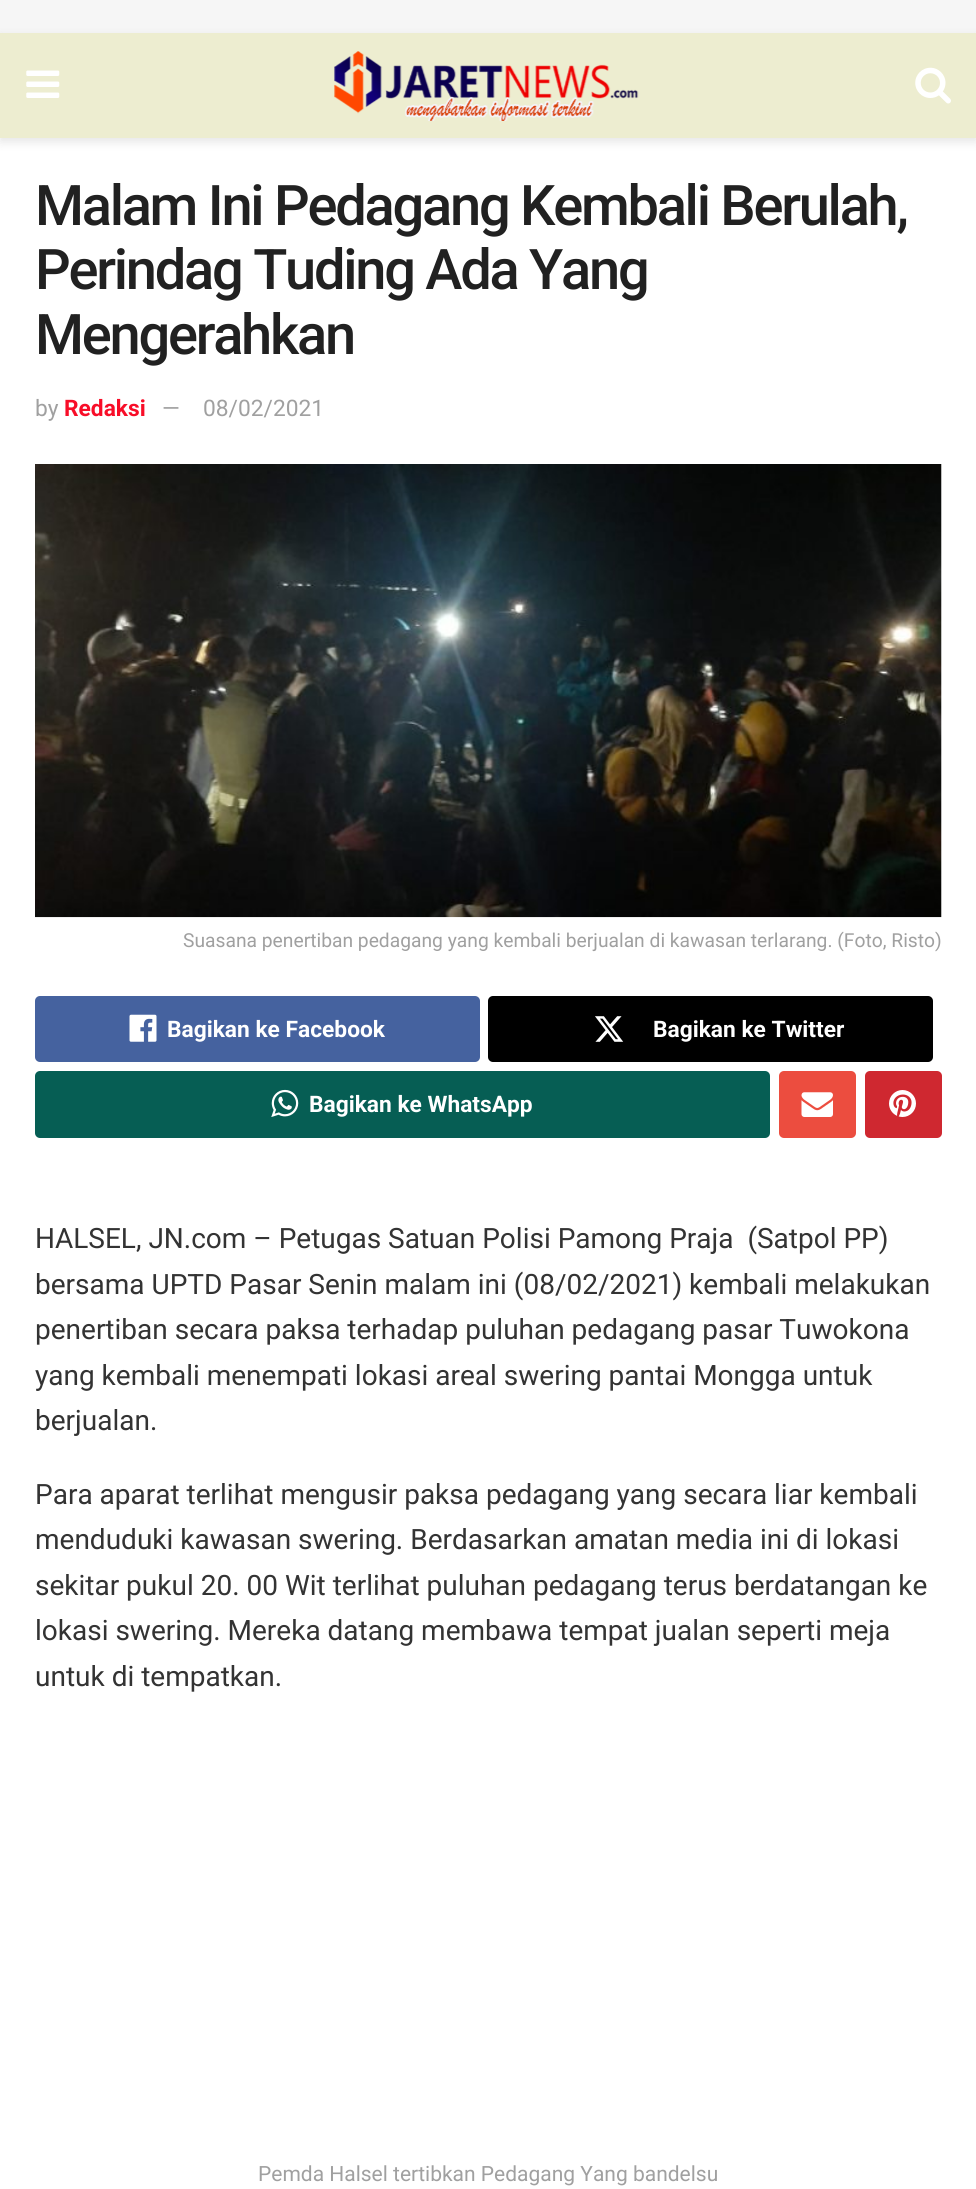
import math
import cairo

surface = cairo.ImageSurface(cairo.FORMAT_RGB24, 976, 2189)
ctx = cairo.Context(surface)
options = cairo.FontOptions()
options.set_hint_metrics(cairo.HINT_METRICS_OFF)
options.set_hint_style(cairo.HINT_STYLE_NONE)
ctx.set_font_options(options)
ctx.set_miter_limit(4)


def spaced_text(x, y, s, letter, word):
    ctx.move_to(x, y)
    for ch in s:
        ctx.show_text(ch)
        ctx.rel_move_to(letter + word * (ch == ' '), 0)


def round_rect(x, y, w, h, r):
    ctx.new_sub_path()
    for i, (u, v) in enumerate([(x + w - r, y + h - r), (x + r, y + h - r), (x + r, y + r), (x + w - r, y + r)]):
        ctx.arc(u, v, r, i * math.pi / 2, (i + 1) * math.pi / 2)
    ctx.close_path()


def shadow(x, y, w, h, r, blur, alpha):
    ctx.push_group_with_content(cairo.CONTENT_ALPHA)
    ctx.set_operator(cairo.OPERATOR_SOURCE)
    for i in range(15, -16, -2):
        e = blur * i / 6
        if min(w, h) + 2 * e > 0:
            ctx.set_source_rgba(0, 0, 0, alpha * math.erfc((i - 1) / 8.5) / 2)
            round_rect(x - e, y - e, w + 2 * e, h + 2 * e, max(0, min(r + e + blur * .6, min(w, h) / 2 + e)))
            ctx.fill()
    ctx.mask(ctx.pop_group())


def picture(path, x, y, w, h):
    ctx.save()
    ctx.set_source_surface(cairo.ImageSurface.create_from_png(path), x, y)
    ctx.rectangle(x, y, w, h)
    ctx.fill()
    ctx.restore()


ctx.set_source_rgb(1, 1, 1)
ctx.paint()
ctx.set_source_rgb(0.961, 0.961, 0.961)
ctx.rectangle(0, 0, 976, 33)
ctx.fill()
ctx.set_source_rgb(0, 0, 0)
shadow(0, 37, 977, 105, 0, 5, 0.1)
ctx.set_source_rgb(0.929, 0.929, 0.816)
ctx.rectangle(0, 33, 976, 105)
ctx.fill()
picture("img1.png", 26, 70, 34, 28)
picture("img2.png", 334, 51, 305, 70)
picture("img3.png", 915, 67, 36, 37)
ctx.select_font_face("Roboto Medium")
ctx.set_font_size(56)
ctx.set_source_rgb(0.129, 0.129, 0.129)
spaced_text(35, 225, "Malam Ini Pedagang Kembali Berulah,", -2.25, 0)
spaced_text(35, 289, "Perindag Tuding Ada Yang", -2.25, 0)
spaced_text(35, 354, "Mengerahkan", -2.25, 0)
ctx.select_font_face("Roboto")
ctx.set_font_size(22.75)
ctx.set_source_rgb(0.627, 0.627, 0.627)
ctx.move_to(35, 416)
ctx.show_text("by")
ctx.select_font_face("Roboto", cairo.FONT_SLANT_NORMAL, cairo.FONT_WEIGHT_BOLD)
ctx.set_source_rgb(0.969, 0.051, 0.157)
ctx.move_to(64, 416)
ctx.show_text("Redaksi")
ctx.select_font_face("Roboto")
ctx.set_source_rgb(0.627, 0.627, 0.627)
ctx.move_to(162, 416)
ctx.show_text("—")
ctx.move_to(203, 416)
ctx.show_text("08/02/2021")
ctx.set_source_rgb(0.969, 0.969, 0.969)
ctx.rectangle(941, 464, 1, 453)
ctx.fill()
picture("img4.png", 35, 464, 907, 454)
ctx.set_font_size(19.25)
ctx.set_source_rgb(0.627, 0.627, 0.627)
ctx.move_to(183, 947)
ctx.show_text("Suasana penertiban pedagang yang kembali berjualan di kawasan terlarang. (Foto, Risto)")
ctx.set_source_rgb(0.271, 0.384, 0.624)
round_rect(35, 996, 445, 66, 5)
ctx.fill()
picture("img5.png", 129, 1014, 28, 28)
ctx.select_font_face("Roboto", cairo.FONT_SLANT_NORMAL, cairo.FONT_WEIGHT_BOLD)
ctx.set_font_size(22.75)
ctx.set_source_rgb(1, 1, 1)
ctx.move_to(167, 1037)
ctx.show_text("Bagikan ke Facebook")
ctx.set_source_rgb(0, 0, 0)
round_rect(488, 996, 445, 66, 5)
ctx.fill()
picture("img6.png", 595, 1016, 29, 26)
ctx.set_source_rgb(1, 1, 1)
ctx.move_to(653, 1037)
ctx.show_text("Bagikan ke Twitter")
ctx.set_source_rgb(0.027, 0.369, 0.329)
round_rect(35, 1071, 735, 67, 5)
ctx.fill()
picture("img7.png", 271, 1089, 28, 28)
ctx.set_source_rgb(1, 1, 1)
ctx.move_to(309, 1112)
ctx.show_text("Bagikan ke WhatsApp")
ctx.set_source_rgb(0.922, 0.302, 0.247)
round_rect(779, 1071, 77, 67, 5)
ctx.fill()
picture("img8.png", 801, 1092, 32, 25)
ctx.set_source_rgb(0.812, 0.157, 0.188)
round_rect(865, 1071, 77, 67, 5)
ctx.fill()
picture("img9.png", 889, 1090, 27, 27)
ctx.select_font_face("Roboto")
ctx.set_font_size(28)
ctx.set_source_rgb(0.2, 0.2, 0.2)
ctx.move_to(35, 1248)
ctx.show_text("HALSEL, JN.com – Petugas Satuan Polisi Pamong Praja  (Satpol PP)")
ctx.move_to(35, 1294)
ctx.show_text("bersama UPTD Pasar Senin malam ini (08/02/2021) kembali melakukan")
ctx.move_to(35, 1339)
ctx.show_text("penertiban secara paksa terhadap puluhan pedagang pasar Tuwokona")
ctx.move_to(35, 1385)
ctx.show_text("yang kembali menempati lokasi areal swering pantai Mongga untuk")
ctx.move_to(35, 1430)
ctx.show_text("berjualan.")
ctx.move_to(35, 1504)
ctx.show_text("Para aparat terlihat mengusir paksa pedagang yang secara liar kembali")
ctx.move_to(35, 1549)
ctx.show_text("menduduki kawasan swering. Berdasarkan amatan media ini di lokasi")
ctx.move_to(35, 1595)
ctx.show_text("sekitar pukul 20. 00 Wit terlihat puluhan pedagang terus berdatangan ke")
ctx.move_to(35, 1640)
ctx.show_text("lokasi swering. Mereka datang membawa tempat jualan seperti meja")
ctx.move_to(35, 1686)
ctx.show_text("untuk di tempatkan.")
ctx.set_font_size(21)
ctx.set_source_rgb(0.627, 0.627, 0.627)
ctx.move_to(258, 2181)
ctx.show_text("Pemda Halsel tertibkan Pedagang Yang bandelsu")
surface.write_to_png("page.png")
